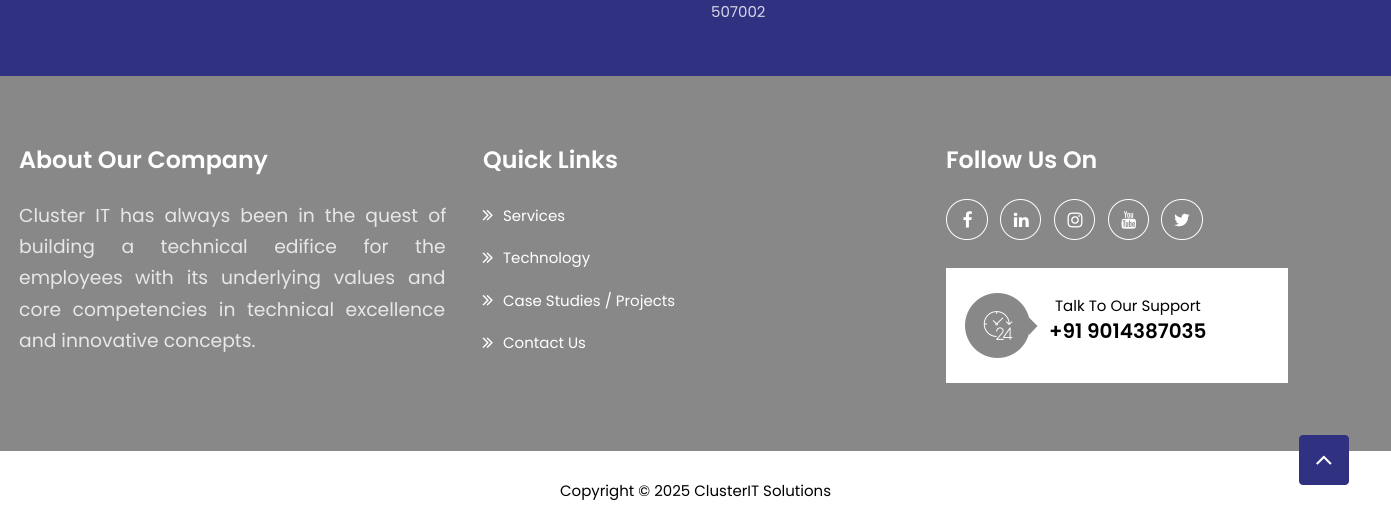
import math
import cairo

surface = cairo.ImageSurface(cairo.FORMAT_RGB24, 1391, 527)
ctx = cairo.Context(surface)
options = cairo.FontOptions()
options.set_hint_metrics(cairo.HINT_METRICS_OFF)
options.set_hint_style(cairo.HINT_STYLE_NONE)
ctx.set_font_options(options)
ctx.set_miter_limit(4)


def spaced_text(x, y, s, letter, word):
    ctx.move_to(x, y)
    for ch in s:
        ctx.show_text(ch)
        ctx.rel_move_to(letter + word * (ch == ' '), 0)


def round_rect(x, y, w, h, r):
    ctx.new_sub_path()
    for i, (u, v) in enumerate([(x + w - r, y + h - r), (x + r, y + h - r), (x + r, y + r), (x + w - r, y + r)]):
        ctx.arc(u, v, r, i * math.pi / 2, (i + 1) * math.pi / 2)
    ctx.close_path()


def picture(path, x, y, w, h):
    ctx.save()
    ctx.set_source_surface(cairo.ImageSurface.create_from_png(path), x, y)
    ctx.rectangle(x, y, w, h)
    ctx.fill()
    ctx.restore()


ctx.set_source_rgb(1, 1, 1)
ctx.paint()
ctx.set_source_rgb(0.188, 0.192, 0.506)
ctx.rectangle(0, 0, 1391, 76)
ctx.fill()
ctx.select_font_face("Poppins")
ctx.set_font_size(15)
ctx.set_source_rgb(0.839, 0.839, 0.902)
ctx.move_to(711, 17)
ctx.show_text("507002")
ctx.set_source_rgb(0.533, 0.533, 0.533)
ctx.rectangle(0, 76, 1391, 375)
ctx.fill()
ctx.select_font_face("Poppins SemiBold")
ctx.set_font_size(23.75)
ctx.set_source_rgb(1, 1, 1)
ctx.move_to(19, 168)
ctx.show_text("About Our Company")
ctx.select_font_face("Poppins")
ctx.set_font_size(18.75)
ctx.set_source_rgb(0.906, 0.906, 0.906)
spaced_text(19, 222, "Cluster IT has always been in the quest of", 0, 5)
spaced_text(19, 253, "building a technical edifice for the", 0, 21.5)
ctx.move_to(19, 284)
ctx.show_text("employees")
spaced_text(135, 284, "with its underlying values and", 0, 8)
spaced_text(19, 316, "core competencies in technical excellence", 0, 6.5)
ctx.move_to(19, 347)
ctx.show_text("and innovative concepts.")
ctx.select_font_face("Poppins SemiBold")
ctx.set_font_size(23.75)
ctx.set_source_rgb(1, 1, 1)
ctx.move_to(483, 168)
ctx.show_text("Quick Links")
picture("img1.png", 482, 210, 11, 11)
ctx.select_font_face("Poppins")
ctx.set_font_size(15)
ctx.move_to(503, 221)
ctx.show_text("Services")
picture("img2.png", 482, 252, 11, 11)
ctx.move_to(503, 263)
ctx.show_text("Technology")
picture("img1.png", 482, 295, 11, 11)
ctx.move_to(503, 306)
ctx.show_text("Case Studies / Projects")
picture("img2.png", 482, 337, 11, 11)
ctx.move_to(503, 348)
ctx.show_text("Contact Us")
ctx.select_font_face("Poppins SemiBold")
ctx.set_font_size(23.75)
ctx.move_to(946, 168)
ctx.show_text("Follow Us On")
round_rect(946.5, 199.5, 41, 40, 20)
ctx.set_line_width(1)
ctx.stroke()
picture("img3.png", 963, 211, 9, 17)
ctx.arc(1020.5, 219.5, 20, 0, 2 * math.pi)
ctx.stroke()
picture("img4.png", 1013, 212, 16, 15)
ctx.arc(1074.5, 219.5, 20, 0, 2 * math.pi)
ctx.stroke()
picture("img5.png", 1067, 212, 16, 16)
ctx.arc(1128.5, 219.5, 20, 0, 2 * math.pi)
ctx.stroke()
picture("img6.png", 1121, 211, 15, 18)
round_rect(1161.5, 199.5, 41, 40, 20)
ctx.stroke()
picture("img7.png", 1174, 213, 16, 14)
ctx.rectangle(946, 268, 342, 115)
ctx.fill()
ctx.set_source_rgb(0.533, 0.533, 0.533)
ctx.arc(997.5, 325.5, 32.5, 0, 2 * math.pi)
ctx.fill()
picture("img8.png", 983, 311, 30, 29)
ctx.new_path()
ctx.move_to(1029, 335)
ctx.line_to(1029, 317.5)
ctx.line_to(1037.5, 326)
ctx.close_path()
ctx.fill()
ctx.select_font_face("Poppins")
ctx.set_font_size(15)
ctx.set_source_rgb(0, 0, 0)
ctx.move_to(1055, 311)
ctx.show_text("Talk To Our Support")
ctx.select_font_face("Poppins SemiBold")
ctx.set_font_size(20)
ctx.move_to(1049, 338)
ctx.show_text("+91 9014387035")
ctx.select_font_face("Poppins")
ctx.set_font_size(15)
ctx.move_to(560, 496)
ctx.show_text("Copyright © 2025 ClusterIT Solutions")
ctx.set_source_rgb(0.188, 0.192, 0.506)
round_rect(1299, 435, 50, 50, 4)
ctx.fill()
picture("img9.png", 1316, 455, 16, 10)
surface.write_to_png("page.png")
